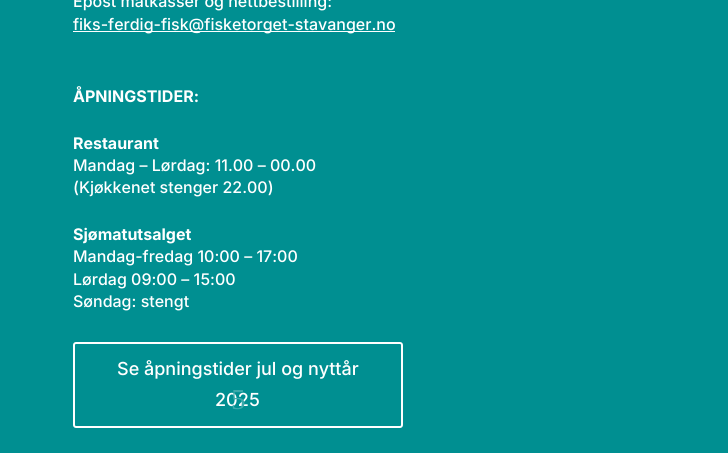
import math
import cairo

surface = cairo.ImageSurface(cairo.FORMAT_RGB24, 728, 453)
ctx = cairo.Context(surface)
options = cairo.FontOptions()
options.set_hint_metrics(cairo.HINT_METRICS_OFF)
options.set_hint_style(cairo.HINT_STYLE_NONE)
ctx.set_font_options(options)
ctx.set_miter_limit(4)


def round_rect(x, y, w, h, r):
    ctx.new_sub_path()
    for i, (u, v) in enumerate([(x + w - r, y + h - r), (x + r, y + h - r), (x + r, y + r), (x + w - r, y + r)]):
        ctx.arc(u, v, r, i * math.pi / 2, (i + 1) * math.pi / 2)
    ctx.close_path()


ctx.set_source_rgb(0, 0.561, 0.569)
ctx.paint()
ctx.select_font_face("Inter Medium")
ctx.set_font_size(16)
ctx.set_source_rgb(1, 1, 1)
ctx.move_to(73, 7)
ctx.show_text("Epost matkasser og nettbestilling:")
ctx.rectangle(73, 31, 322, 1)
ctx.fill()
ctx.move_to(73, 30)
ctx.show_text("fiks-ferdig-fisk@fisketorget-stavanger.no")
ctx.select_font_face("Inter", cairo.FONT_SLANT_NORMAL, cairo.FONT_WEIGHT_BOLD)
ctx.move_to(73, 102)
ctx.show_text("ÅPNINGSTIDER:")
ctx.move_to(73, 149)
ctx.show_text("Restaurant")
ctx.select_font_face("Inter Medium")
ctx.move_to(73, 171)
ctx.show_text("Mandag – Lørdag: 11.00 – 00.00")
ctx.move_to(73, 193)
ctx.show_text("(Kjøkkenet stenger 22.00)")
ctx.select_font_face("Inter", cairo.FONT_SLANT_NORMAL, cairo.FONT_WEIGHT_BOLD)
ctx.move_to(73, 240)
ctx.show_text("Sjømatutsalget")
ctx.select_font_face("Inter Medium")
ctx.move_to(73, 262)
ctx.show_text("Mandag-fredag 10:00 – 17:00")
ctx.move_to(73, 285)
ctx.show_text("Lørdag 09:00 – 15:00")
ctx.move_to(73, 307)
ctx.show_text("Søndag: stengt")
round_rect(74, 343, 328, 84, 2)
ctx.stroke()
ctx.set_font_size(18)
ctx.move_to(117, 375)
ctx.show_text("Se åpningstider jul og nyttår")
ctx.move_to(215, 406)
ctx.show_text("2025")
ctx.select_font_face("Liberation Serif")
ctx.set_font_size(29)
ctx.set_source_rgb(0.239, 0.667, 0.671)
ctx.move_to(231, 409)
ctx.show_text("5")
surface.write_to_png("page.png")
